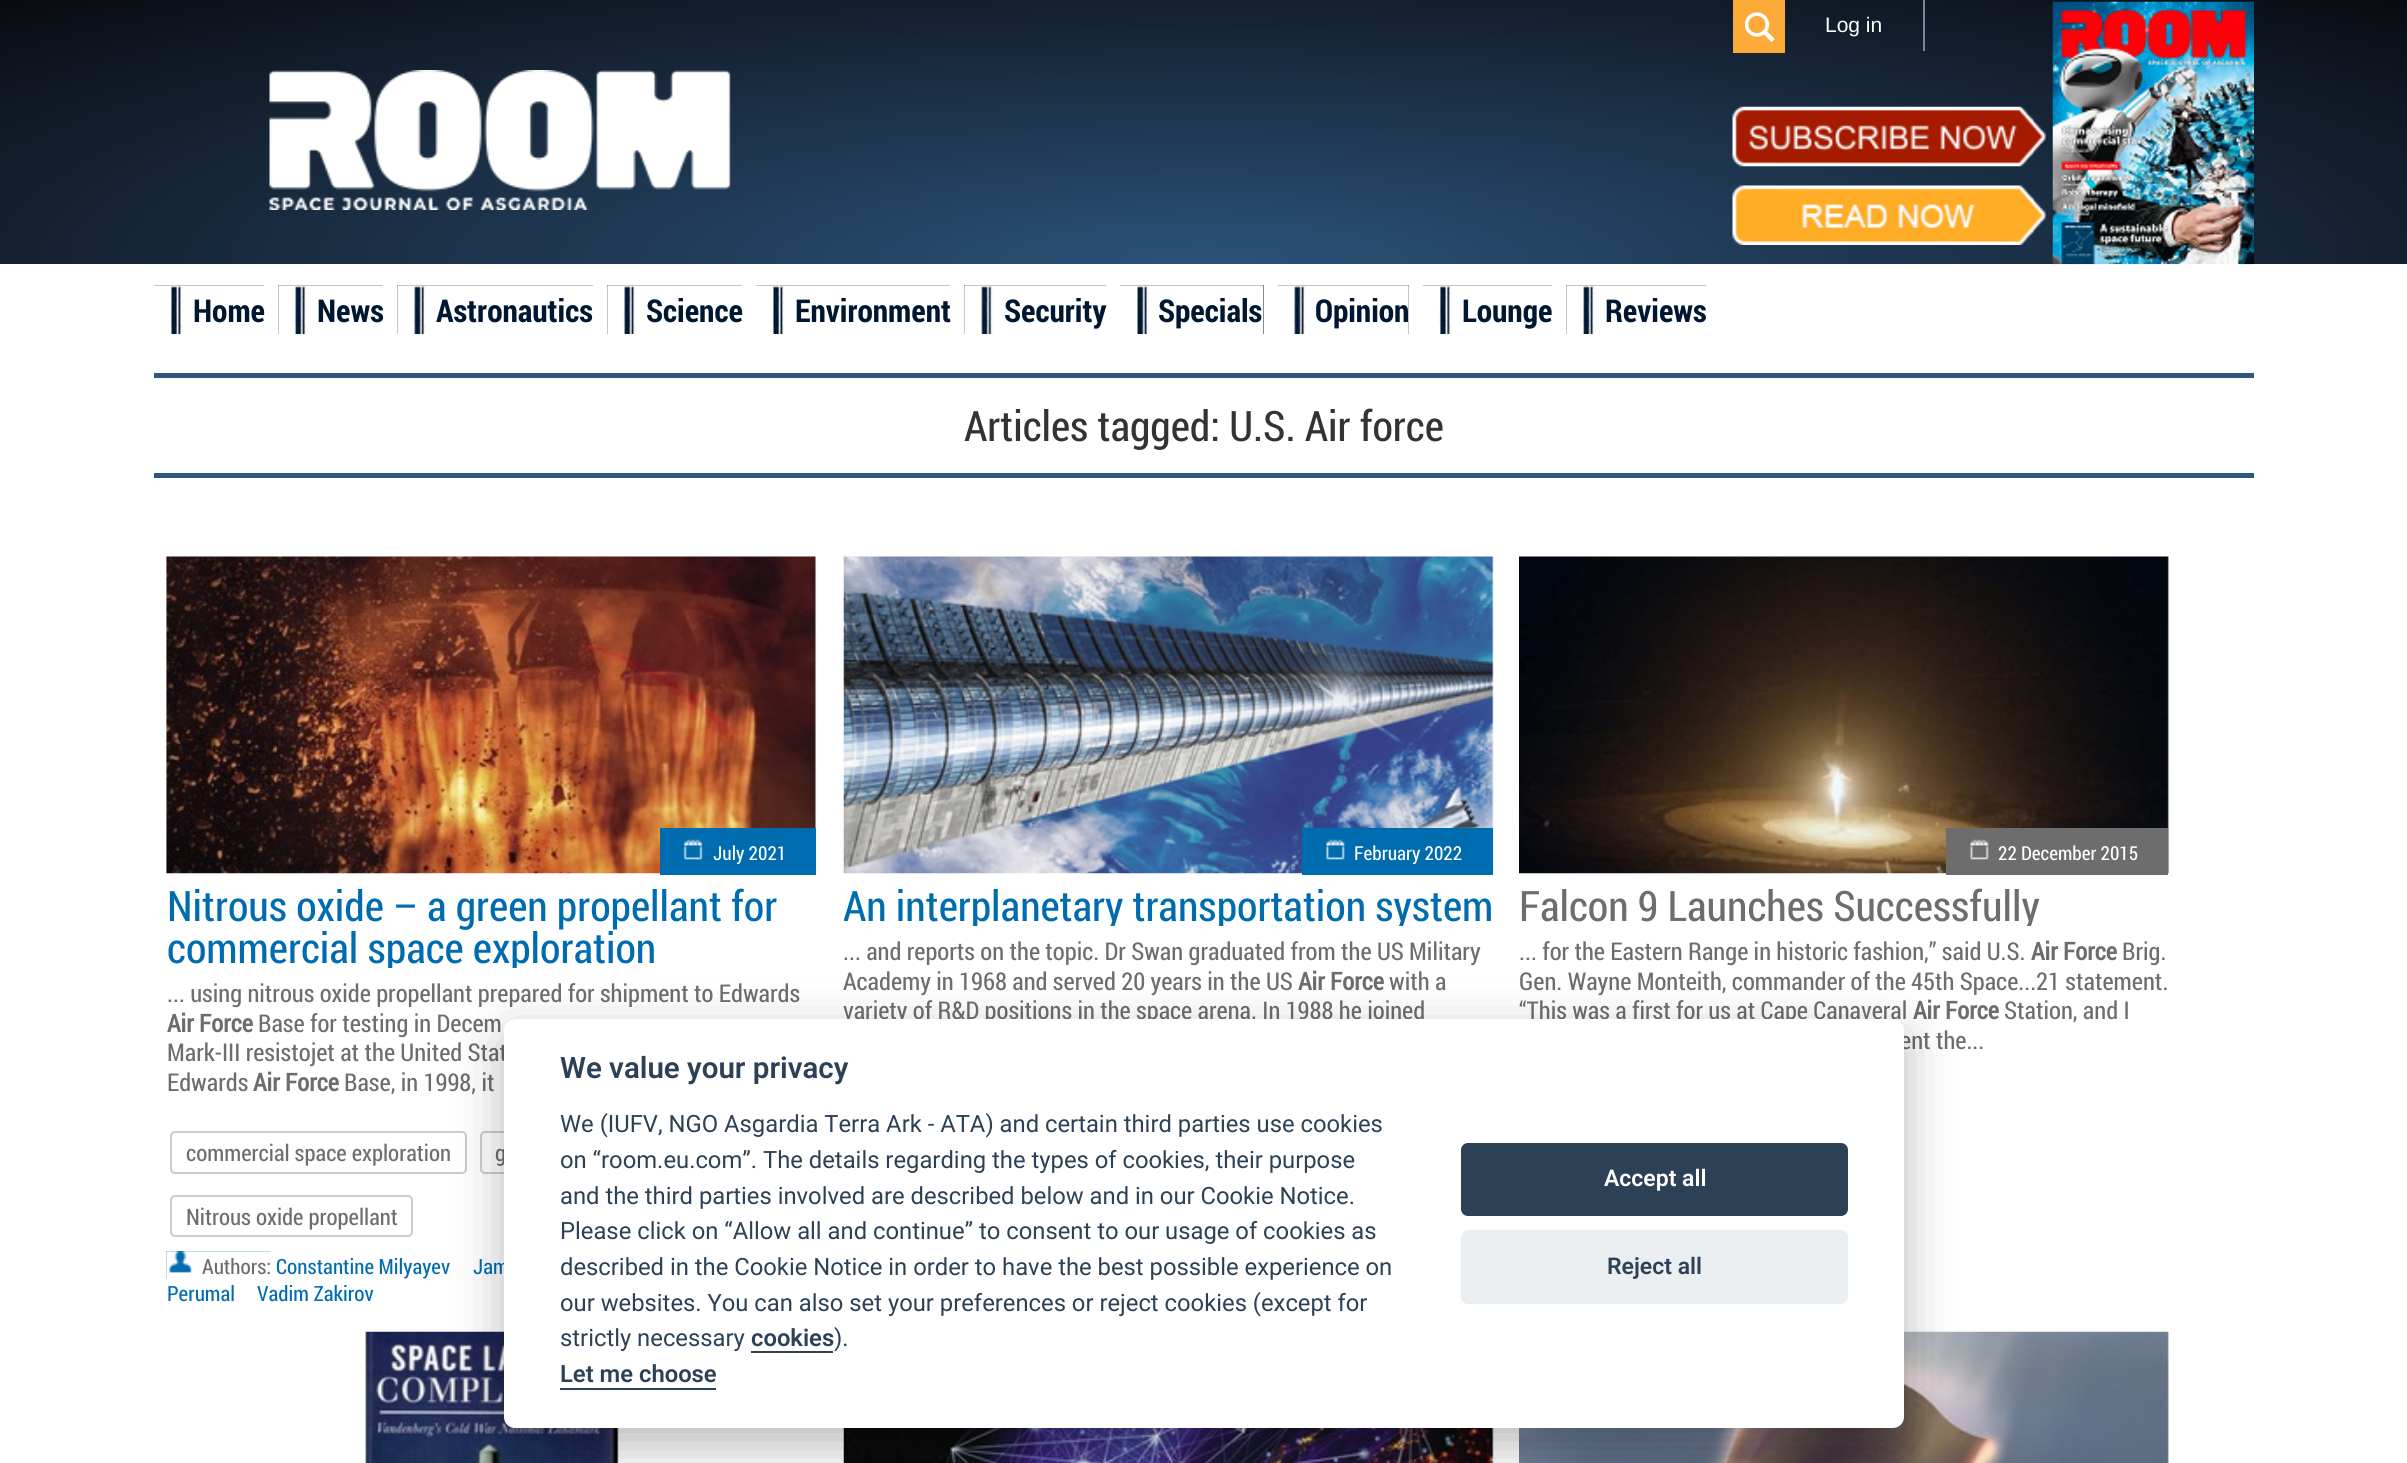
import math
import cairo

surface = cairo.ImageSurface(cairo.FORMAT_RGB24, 2407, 1463)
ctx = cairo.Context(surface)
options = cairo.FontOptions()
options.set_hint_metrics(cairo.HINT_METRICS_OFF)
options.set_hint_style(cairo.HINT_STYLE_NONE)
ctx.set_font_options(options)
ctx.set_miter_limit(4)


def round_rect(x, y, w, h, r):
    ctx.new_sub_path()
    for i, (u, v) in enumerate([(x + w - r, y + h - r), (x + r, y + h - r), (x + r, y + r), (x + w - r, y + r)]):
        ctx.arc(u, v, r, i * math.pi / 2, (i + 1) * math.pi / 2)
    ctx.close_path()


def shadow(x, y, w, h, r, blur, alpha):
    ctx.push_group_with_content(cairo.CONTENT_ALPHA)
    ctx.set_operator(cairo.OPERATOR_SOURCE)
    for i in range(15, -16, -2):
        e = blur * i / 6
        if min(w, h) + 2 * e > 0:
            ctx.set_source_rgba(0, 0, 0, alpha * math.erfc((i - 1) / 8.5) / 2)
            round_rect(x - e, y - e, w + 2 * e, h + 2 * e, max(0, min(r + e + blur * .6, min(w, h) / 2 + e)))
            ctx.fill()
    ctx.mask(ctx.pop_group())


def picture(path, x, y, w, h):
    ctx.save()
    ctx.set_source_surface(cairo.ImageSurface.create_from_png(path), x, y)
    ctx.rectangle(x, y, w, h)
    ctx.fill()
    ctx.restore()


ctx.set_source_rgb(1, 1, 1)
ctx.paint()
gradient = cairo.RadialGradient(0, 0, 0, 0, 0, 1)
gradient.set_matrix(cairo.Matrix(1 / 1703, 0, 0, 1 / 374, -1 * 1204 / 1703, -1 * 264 / 374))
gradient.add_color_stop_rgba(0, 0.169, 0.322, 0.475, 1)
gradient.add_color_stop_rgba(1, 0.035, 0.039, 0.059, 1)
ctx.set_source(gradient)
ctx.rectangle(0, 0, 2407, 264)
ctx.fill()
picture("img1.png", 269, 70, 462, 140)
picture("img2.png", 1732, 106, 314, 61)
picture("img3.png", 1732, 185, 314, 60)
picture("img4.png", 2052, 1, 202, 264)
ctx.set_source_rgb(0.988, 0.671, 0.22)
ctx.rectangle(1733, 0, 52, 53)
ctx.fill()
picture("img5.png", 1745, 12, 30, 30)
ctx.set_source_rgb(0.455, 0.529, 0.612)
ctx.rectangle(1923, 0, 2, 51)
ctx.fill()
ctx.select_font_face("Liberation Sans")
ctx.set_font_size(21)
ctx.set_source_rgb(1, 1, 1)
ctx.move_to(1825, 32)
ctx.show_text("Log in")
ctx.set_source_rgb(0, 0.09, 0.192)
ctx.rectangle(154, 285, 110, 49)
ctx.fill()
picture("img6.png", 154, 285, 110, 49)
ctx.select_font_face("Roboto Condensed", cairo.FONT_SLANT_NORMAL, cairo.FONT_WEIGHT_BOLD)
ctx.set_font_size(31.5)
ctx.move_to(193, 322)
ctx.show_text("Home")
ctx.rectangle(278, 285, 105, 49)
ctx.fill()
picture("img7.png", 278, 285, 105, 49)
ctx.move_to(317, 322)
ctx.show_text("News")
ctx.rectangle(397, 285, 196, 49)
ctx.fill()
picture("img8.png", 397, 285, 196, 49)
ctx.move_to(436, 322)
ctx.show_text("Astronautics")
ctx.rectangle(607, 285, 135, 49)
ctx.fill()
picture("img9.png", 607, 285, 135, 49)
ctx.move_to(646, 322)
ctx.show_text("Science")
ctx.rectangle(756, 285, 194, 49)
ctx.fill()
picture("img10.png", 756, 285, 194, 49)
ctx.move_to(795, 322)
ctx.show_text("Environment")
ctx.rectangle(964, 285, 142, 49)
ctx.fill()
picture("img11.png", 964, 285, 142, 49)
ctx.move_to(1004, 322)
ctx.show_text("Security")
ctx.rectangle(1120, 285, 144, 49)
ctx.fill()
picture("img12.png", 1120, 285, 144, 49)
ctx.move_to(1158, 322)
ctx.show_text("Specials")
ctx.rectangle(1278, 285, 131, 49)
ctx.fill()
picture("img13.png", 1278, 285, 131, 49)
ctx.move_to(1315, 322)
ctx.show_text("Opinion")
ctx.rectangle(1423, 285, 129, 49)
ctx.fill()
picture("img14.png", 1423, 285, 129, 49)
ctx.move_to(1462, 322)
ctx.show_text("Lounge")
ctx.rectangle(1566, 285, 140, 49)
ctx.fill()
picture("img15.png", 1566, 285, 140, 49)
ctx.move_to(1605, 322)
ctx.show_text("Reviews")
ctx.set_source_rgb(0.176, 0.341, 0.506)
ctx.rectangle(154, 373, 2100, 5)
ctx.fill()
ctx.rectangle(154, 473, 2100, 5)
ctx.fill()
ctx.select_font_face("Roboto Condensed")
ctx.set_font_size(42)
ctx.set_source_rgb(0.2, 0.2, 0.2)
ctx.move_to(964, 441)
ctx.show_text("Articles tagged: U.S. Air force")
picture("img16.png", 166, 556, 651, 318)
ctx.set_source_rgb(0, 0.424, 0.69)
ctx.rectangle(660, 828, 156, 47)
ctx.fill()
picture("img17.png", 683, 839, 20, 21)
ctx.set_font_size(19.25)
ctx.set_source_rgb(1, 1, 1)
ctx.move_to(713, 860)
ctx.show_text("July 2021")
ctx.set_font_size(42)
ctx.set_source_rgb(0, 0.424, 0.69)
ctx.move_to(167, 921)
ctx.show_text("Nitrous oxide – a green propellant for")
ctx.save()
ctx.rectangle(166, 884, 651, 84)
ctx.clip()
ctx.move_to(167, 963)
ctx.show_text("commercial space exploration")
ctx.restore()
ctx.set_font_size(24.5)
ctx.set_source_rgb(0.427, 0.427, 0.427)
ctx.move_to(167, 1002)
ctx.show_text("... using nitrous oxide propellant prepared for shipment to Edwards")
ctx.select_font_face("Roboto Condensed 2", cairo.FONT_SLANT_NORMAL, cairo.FONT_WEIGHT_BOLD)
ctx.move_to(167, 1032)
ctx.show_text("Air Force")
ctx.select_font_face("Roboto Condensed")
ctx.move_to(258, 1032)
ctx.show_text("Base for testing in Decem")
ctx.move_to(167, 1061)
ctx.show_text("Mark-III resistojet at the United Stat")
ctx.move_to(167, 1091)
ctx.show_text("Edwards")
ctx.select_font_face("Roboto Condensed 2", cairo.FONT_SLANT_NORMAL, cairo.FONT_WEIGHT_BOLD)
ctx.move_to(253, 1091)
ctx.show_text("Air Force")
ctx.select_font_face("Roboto Condensed")
ctx.move_to(344, 1091)
ctx.show_text("Base, in 1998, it")
round_rect(171, 1132, 295, 41, 4)
ctx.set_source_rgb(0.8, 0.8, 0.8)
ctx.stroke()
ctx.set_font_size(22.75)
ctx.set_source_rgb(0.427, 0.427, 0.427)
ctx.move_to(186, 1161)
ctx.show_text("commercial space exploration")
round_rect(481, 1132, 173, 41, 4)
ctx.set_source_rgb(0.8, 0.8, 0.8)
ctx.stroke()
ctx.set_source_rgb(0.427, 0.427, 0.427)
ctx.move_to(495, 1161)
ctx.show_text("g")
round_rect(171, 1196, 241, 40, 4)
ctx.set_source_rgb(0.8, 0.8, 0.8)
ctx.stroke()
ctx.set_source_rgb(0.427, 0.427, 0.427)
ctx.move_to(186, 1225)
ctx.show_text("Nitrous oxide propellant")
ctx.set_source_rgb(0, 0.424, 0.69)
ctx.rectangle(166, 1251, 105, 28)
ctx.fill()
picture("img18.png", 166, 1251, 105, 28)
ctx.set_font_size(21)
ctx.set_source_rgb(0.427, 0.427, 0.427)
ctx.move_to(202, 1274)
ctx.show_text("Authors:")
ctx.set_source_rgb(0, 0.424, 0.69)
ctx.move_to(276, 1274)
ctx.show_text("Constantine Milyayev")
ctx.move_to(473, 1274)
ctx.show_text("Jam")
ctx.move_to(167, 1301)
ctx.show_text("Perumal")
ctx.move_to(257, 1301)
ctx.show_text("Vadim Zakirov")
picture("img19.png", 843, 556, 651, 318)
ctx.rectangle(1302, 828, 191, 47)
ctx.fill()
picture("img20.png", 1326, 839, 19, 21)
ctx.set_font_size(19.25)
ctx.set_source_rgb(1, 1, 1)
ctx.move_to(1354, 860)
ctx.show_text("February 2022")
ctx.save()
ctx.rectangle(844, 884, 651, 42)
ctx.clip()
ctx.set_font_size(42)
ctx.set_source_rgb(0, 0.424, 0.69)
ctx.move_to(843, 921)
ctx.show_text("An interplanetary transportation system")
ctx.restore()
ctx.set_font_size(24.5)
ctx.set_source_rgb(0.427, 0.427, 0.427)
ctx.move_to(843, 960)
ctx.show_text("... and reports on the topic. Dr Swan graduated from the US Military")
ctx.move_to(843, 990)
ctx.show_text("Academy in 1968 and served 20 years in the US")
ctx.select_font_face("Roboto Condensed 2", cairo.FONT_SLANT_NORMAL, cairo.FONT_WEIGHT_BOLD)
ctx.move_to(1298, 990)
ctx.show_text("Air Force")
ctx.select_font_face("Roboto Condensed")
ctx.move_to(1389, 990)
ctx.show_text("with a")
ctx.move_to(843, 1019)
ctx.show_text("variety of R&D positions in the space arena. In 1988 he joined")
picture("img21.png", 1519, 556, 650, 318)
ctx.rectangle(1946, 828, 222, 47)
ctx.fill()
picture("img22.png", 1970, 839, 19, 21)
ctx.set_font_size(19.25)
ctx.set_source_rgb(1, 1, 1)
ctx.move_to(1998, 860)
ctx.show_text("22 December 2015")
ctx.save()
ctx.rectangle(1519, 884, 651, 42)
ctx.clip()
ctx.set_font_size(42)
ctx.set_source_rgb(0.427, 0.427, 0.427)
ctx.move_to(1519, 921)
ctx.show_text("Falcon 9 Launches Successfully")
ctx.restore()
ctx.set_font_size(24.5)
ctx.set_source_rgb(0.427, 0.427, 0.427)
ctx.move_to(1519, 960)
ctx.show_text("... for the Eastern Range in historic fashion,” said U.S.")
ctx.select_font_face("Roboto Condensed 2", cairo.FONT_SLANT_NORMAL, cairo.FONT_WEIGHT_BOLD)
ctx.move_to(2031, 960)
ctx.show_text("Air Force")
ctx.select_font_face("Roboto Condensed")
ctx.move_to(2122, 960)
ctx.show_text("Brig.")
ctx.move_to(1519, 990)
ctx.show_text("Gen. Wayne Monteith, commander of the 45th Space...21 statement.")
ctx.move_to(1519, 1019)
ctx.show_text("“This was a first for us at Cape Canaveral")
ctx.select_font_face("Roboto Condensed 2", cairo.FONT_SLANT_NORMAL, cairo.FONT_WEIGHT_BOLD)
ctx.move_to(1913, 1019)
ctx.show_text("Air Force")
ctx.select_font_face("Roboto Condensed")
ctx.move_to(2004, 1019)
ctx.show_text("Station, and I")
ctx.move_to(1900, 1049)
ctx.show_text("ent the...")
picture("img23.png", 364, 1331, 255, 132)
picture("img24.png", 843, 1428, 652, 35)
picture("img25.png", 1519, 1331, 651, 132)
ctx.set_source_rgb(0.008, 0.008, 0.012)
shadow(504, 1036, 1400, 410, 11, 26, 0.28)
ctx.set_source_rgb(1, 1, 1)
round_rect(504, 1019, 1400, 409, 11)
ctx.fill()
ctx.select_font_face("Roboto SemiBold")
ctx.set_font_size(29.5)
ctx.set_source_rgb(0.176, 0.255, 0.337)
ctx.move_to(560, 1078)
ctx.show_text("We value your privacy")
ctx.select_font_face("Roboto")
ctx.set_font_size(23.8)
ctx.move_to(560, 1132)
ctx.show_text("We (IUFV, NGO Asgardia Terra Ark - ATA) and certain third parties use cookies")
ctx.move_to(560, 1168)
ctx.show_text("on “room.eu.com”. The details regarding the types of cookies, their purpose")
ctx.move_to(560, 1204)
ctx.show_text("and the third parties involved are described below and in our Cookie Notice.")
ctx.move_to(560, 1239)
ctx.show_text("Please click on “Allow all and continue” to consent to our usage of cookies as")
ctx.move_to(560, 1275)
ctx.show_text("described in the Cookie Notice in order to have the best possible experience on")
ctx.move_to(560, 1311)
ctx.show_text("our websites. You can also set your preferences or reject cookies (except for")
ctx.move_to(560, 1346)
ctx.show_text("strictly necessary")
ctx.select_font_face("Roboto SemiBold")
ctx.move_to(751, 1346)
ctx.show_text("cookies")
ctx.rectangle(751, 1351, 82, 2)
ctx.fill()
ctx.select_font_face("Roboto")
ctx.move_to(834, 1346)
ctx.show_text(").")
ctx.select_font_face("Roboto SemiBold")
ctx.move_to(560, 1382)
ctx.show_text("Let me choose")
ctx.rectangle(560, 1388, 156, 2)
ctx.fill()
round_rect(1461, 1143, 387, 73, 7)
ctx.fill()
ctx.set_font_size(23)
ctx.set_source_rgb(1, 1, 1)
ctx.move_to(1604, 1186)
ctx.show_text("Accept all")
ctx.set_source_rgb(0.918, 0.937, 0.949)
round_rect(1461, 1230, 387, 74, 7)
ctx.fill()
ctx.set_source_rgb(0.176, 0.255, 0.337)
ctx.move_to(1607, 1274)
ctx.show_text("Reject all")
surface.write_to_png("page.png")
